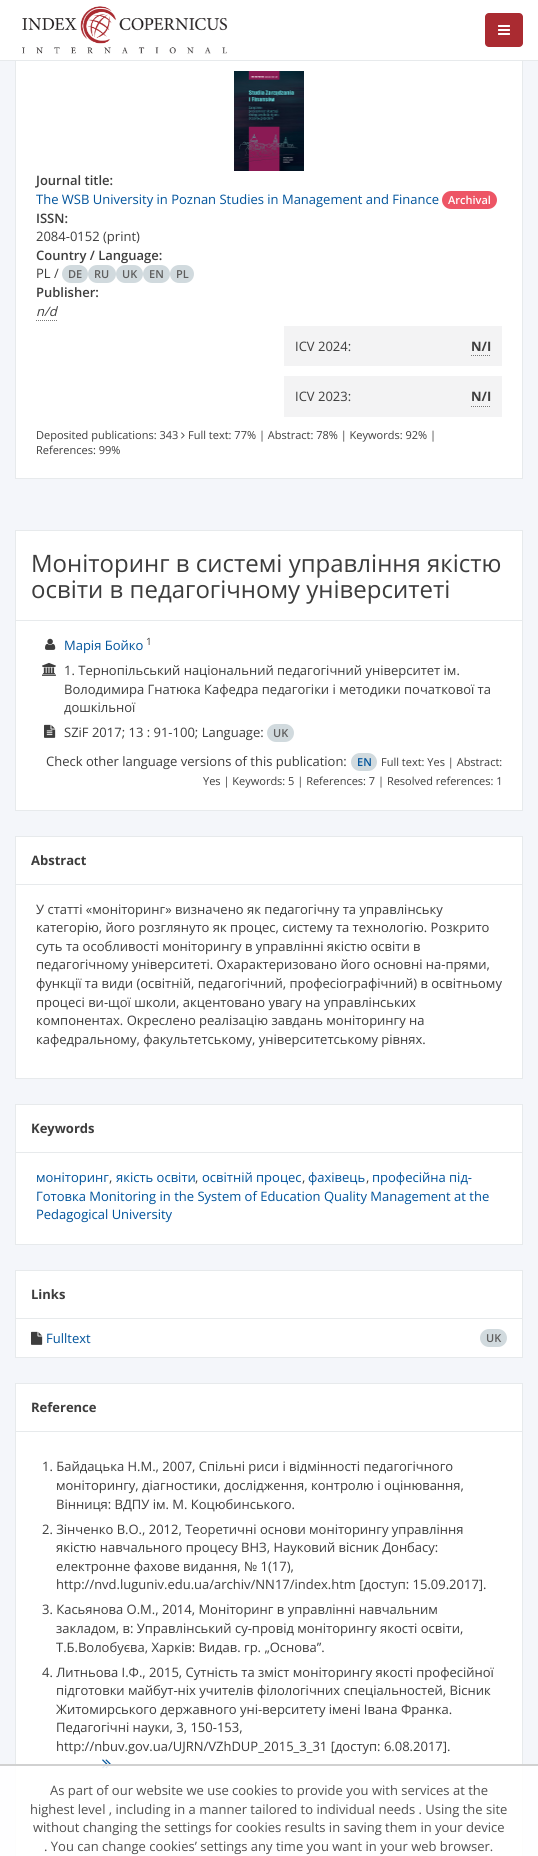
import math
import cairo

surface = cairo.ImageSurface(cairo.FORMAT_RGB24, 538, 1856)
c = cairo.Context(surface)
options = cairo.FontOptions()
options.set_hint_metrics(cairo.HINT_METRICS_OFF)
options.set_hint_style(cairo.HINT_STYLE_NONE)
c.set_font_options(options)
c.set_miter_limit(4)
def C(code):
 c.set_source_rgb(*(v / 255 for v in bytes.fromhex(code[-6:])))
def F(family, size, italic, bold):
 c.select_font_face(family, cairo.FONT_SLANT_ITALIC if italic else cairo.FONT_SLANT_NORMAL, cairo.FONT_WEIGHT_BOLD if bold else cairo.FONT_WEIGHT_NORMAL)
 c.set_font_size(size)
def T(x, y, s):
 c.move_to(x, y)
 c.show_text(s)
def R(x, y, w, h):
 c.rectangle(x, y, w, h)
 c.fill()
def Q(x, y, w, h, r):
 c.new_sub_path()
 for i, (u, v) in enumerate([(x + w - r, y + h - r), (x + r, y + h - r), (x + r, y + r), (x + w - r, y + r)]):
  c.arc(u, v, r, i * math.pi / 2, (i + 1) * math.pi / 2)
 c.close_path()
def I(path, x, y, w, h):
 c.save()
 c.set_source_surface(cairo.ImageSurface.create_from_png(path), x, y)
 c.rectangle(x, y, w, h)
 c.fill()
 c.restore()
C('f4f6fa')
c.paint()
C('ffffff')
R(16,61,506,417)
c.rectangle(15.5,55.5,507,423)
C('e7eaec')
c.set_line_width(1)
c.stroke()
C('ffffff')
R(0,0,538,60)
C('e7eaec')
R(0,60,538,1)
I('1.png',22,6,206,48)
C('aa2b31')
Q(485,13,38,34,4)
c.fill()
I('2.png',498,25,12,10)
I('3.png',234,71,70,100)
F('Open Sans SemiBold',13,0,0)
C('3d3d3d')
T(36,185,'Journal title:')
F('Open Sans',13,0,0)
C('00539b')
T(36,204,'The WSB University in Poznan Studies in Management and Finance')
C('ed5565')
Q(442,191,55,18,9)
c.fill()
F('Open Sans SemiBold',11,0,0)
C('ffffff')
T(448,204,'Archival')
F('Open Sans SemiBold',13,0,0)
C('3d3d3d')
T(36,223,'ISSN:')
F('Open Sans',13,0,0)
T(36,241,'2084-0152 (print)')
F('Open Sans SemiBold',13,0,0)
T(36,260,'Country / Language:')
F('Open Sans',13,0,0)
T(36,278,'PL /')
C('d1dade')
Q(62,265,26,18,9)
c.fill()
F('Open Sans SemiBold',11,0,0)
C('5e5e5e')
T(68,278,'DE')
C('d1dade')
Q(88,265,28,18,9)
c.fill()
C('5e5e5e')
T(94,278,'RU')
C('d1dade')
Q(116,265,27,18,9)
c.fill()
C('5e5e5e')
T(122,278,'UK')
C('d1dade')
Q(143,265,27,18,9)
c.fill()
C('5e5e5e')
T(149,278,'EN')
C('d1dade')
Q(170,265,24,18,9)
c.fill()
C('5e5e5e')
T(176,278,'PL')
F('Open Sans SemiBold',13,0,0)
C('3d3d3d')
T(36,297,'Publisher:')
F('Open Sans',13,1,0)
T(36,316,'n/d')
c.new_path()
c.move_to(36,320.5)
c.line_to(57,320.5)
C('777777')
c.set_dash([1,1])
c.stroke()
C('f3f3f4')
R(284,326,218,40)
F('Open Sans',13,0,0)
C('3d3d3d')
T(295,351,'ICV 2024:')
c.new_path()
c.move_to(471,355.5)
c.line_to(491,355.5)
C('777777')
c.stroke()
F('Open Sans',13,0,1)
C('3d3d3d')
T(471,351,'N/I')
C('f3f3f4')
R(284,376,218,41)
F('Open Sans',13,0,0)
C('3d3d3d')
T(295,401,'ICV 2023:')
c.new_path()
c.move_to(471,406.5)
c.line_to(491,406.5)
C('777777')
c.stroke()
F('Open Sans',13,0,1)
C('3d3d3d')
T(471,401,'N/I')
F('Open Sans',11,0,0)
T(36,439,'Deposited publications: 343')
I('4.png',181,432,4,7)
T(188,439,'Full text: 77% | Abstract: 78% | Keywords: 92% |')
T(36,454,'References: 99%')
C('ffffff')
R(16,531,506,89)
C('e7eaec')
R(15,530,508,1)
R(522,530,1,90)
R(15,530,1,90)
F('Open Sans',24,0,0)
C('3d3d3d')
T(31,572,'Моніторинг в системі управління якістю')
T(31,598,'освіти в педагогічному університеті')
C('ffffff')
c.rectangle(15.5,620.5,507,190)
c.fill_preserve()
C('e7eaec')
c.set_dash([])
c.stroke()
I('5.png',45,638,11,12)
F('Open Sans',13,0,0)
C('00539b')
T(64,650,'Марія Бойко')
F('Open Sans',10,0,0)
C('3d3d3d')
T(146,645,'1')
I('6.png',42,662,14,14)
F('Open Sans',13,0,0)
T(64,675,'1. Тернопільський національний педагогічний університет ім.')
T(64,694,'Володимира Гнатюка Кафедрa педагогіки і методики початкової та')
T(64,712,'дошкільної')
I('7.png',44,724,12,14)
T(64,737,'SZiF 2017; 13 : 91-100; Language:')
C('d1dade')
Q(267,724,27,18,9)
c.fill()
F('Open Sans SemiBold',11,0,0)
C('5e5e5e')
T(273,737,'UK')
F('Open Sans',13,0,0)
C('3d3d3d')
T(46,766,'Check other language versions of this publication:')
C('d1dade')
Q(351,753,26,18,9)
c.fill()
F('Open Sans SemiBold',11,0,0)
C('00539b')
T(357,766,'EN')
F('Open Sans',11,0,0)
C('3d3d3d')
T(381,766,'Full text: Yes | Abstract:')
T(203,785,'Yes | Keywords: 5 | References: 7 | Resolved references: 1')
C('ffffff')
R(16,837,506,47)
C('e7eaec')
R(15,836,508,1)
R(522,836,1,48)
R(15,836,1,48)
F('Open Sans',13,0,1)
C('3d3d3d')
T(31,865,'Abstract')
C('ffffff')
c.rectangle(15.5,884.5,507,194)
c.fill_preserve()
C('e7eaec')
c.stroke()
F('Open Sans',13,0,0)
C('3d3d3d')
T(36,914,'У статті «моніторинг» визначено як педагогічну та управлінську')
T(36,932,'категорію, його розглянуто як процес, систему та технологію. Розкрито')
T(36,951,'суть та особливості моніторингу в управлінні якістю освіти в')
T(36,969,'педагогічному університеті. Охарактеризовано його основні на-прями,')
T(36,988,'функції та види (освітній, педагогічний, професіографічний) в освітньому')
T(36,1007,'процесі ви-щої школи, акцентовано увагу на управлінських')
T(36,1025,'компонентах. Окреслено реалізацію завдань моніторингу на')
T(36,1044,'кафедральному, факультетському, університетському рівнях.')
C('ffffff')
R(16,1105,506,47)
C('e7eaec')
R(15,1104,508,1)
R(522,1104,1,48)
R(15,1104,1,48)
F('Open Sans',13,0,1)
C('3d3d3d')
T(31,1133,'Keywords')
C('ffffff')
c.rectangle(15.5,1152.5,507,92)
c.fill_preserve()
C('e7eaec')
c.stroke()
F('Open Sans',13,0,0)
C('00539b')
T(36,1182,'моніторинг')
C('3d3d3d')
T(109,1182,',')
C('00539b')
T(116,1182,'якість освіти')
C('3d3d3d')
T(195,1182,',')
C('00539b')
T(202,1182,'освітній процес')
C('3d3d3d')
T(302,1182,',')
C('00539b')
T(308,1182,'фахівець')
C('3d3d3d')
T(366,1182,',')
C('00539b')
T(372,1182,'професійна під-')
T(36,1201,'Готовка Monitoring in the System of Education Quality Management at the')
T(36,1219,'Pedagogical University')
C('ffffff')
R(16,1271,506,47)
C('e7eaec')
R(15,1270,508,1)
R(522,1270,1,48)
R(15,1270,1,48)
F('Open Sans',13,0,1)
C('3d3d3d')
T(31,1299,'Links')
C('ffffff')
c.rectangle(15.5,1318.5,507,39)
c.fill_preserve()
C('e7eaec')
c.stroke()
I('8.png',31,1331,12,14)
F('Open Sans',13,0,0)
C('00539b')
T(46,1343,'Fulltext')
C('d1dade')
Q(480,1329,27,18,9)
c.fill()
F('Open Sans SemiBold',11,0,0)
C('5e5e5e')
T(486,1342,'UK')
C('ffffff')
R(16,1384,506,47)
C('e7eaec')
R(15,1383,508,1)
R(522,1383,1,48)
R(15,1383,1,48)
F('Open Sans',13,0,1)
C('3d3d3d')
T(31,1412,'Reference')
C('ffffff')
c.rectangle(15.5,1431.5,507,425)
c.fill_preserve()
C('e7eaec')
c.stroke()
F('Open Sans',13,0,0)
C('3d3d3d')
T(42,1471,'1. Байдацька Н.М., 2007, Спільні риси і відмінності педагогічного')
T(56,1490,'моніторингу, діагностики, дослідження, контролю і оцінювання,')
T(56,1509,'Вінниця: ВДПУ ім. М. Коцюбинського.')
T(42,1534,'2. Зінченко В.О., 2012, Теоретичні основи моніторингу управління')
T(56,1552,'якістю навчального процесу ВНЗ, Науковий вісник Донбасу:')
T(56,1571,'електронне фахове видання, № 1(17),')
T(56,1589,'http://nvd.luguniv.edu.ua/archiv/NN17/index.htm [доступ: 15.09.2017].')
T(42,1614,'3. Касьянова О.М., 2014, Моніторинг в управлінні навчальним')
T(56,1633,'закладом, в: Управлінський су-провід моніторингу якості освіти,')
T(56,1652,'Т.Б.Волобуєва, Харків: Видав. гр. „Основа”.')
T(42,1677,'4. Литньова І.Ф., 2015, Cутність та зміст моніторингу якості професійної')
T(56,1695,'підготовки майбут-ніх учителів філологічних спеціальностей, Вісник')
T(56,1714,'Житомирського державного уні-верситету імені Івана Франка.')
T(56,1732,'Педагогічні науки, 3, 150-153,')
T(56,1751,'http://nbuv.gov.ua/UJRN/VZhDUP_2015_3_31 [доступ: 6.08.2017].')
I('9.png',102,1759,9,10)
c.set_source_rgba(1,1,1,0.9)
R(0,1764,538,92)
c.set_source_rgba(0.8,0.8,0.8,0.9)
R(0,1764,538,2)
C('505050')
T(50,1795,'As part of our website we use cookies to provide you with services at the')
T(30,1814,'highest level , including in a manner tailored to individual needs . Using the site')
T(33,1832,'without changing the settings for cookies results in saving them in your device')
T(44,1851,'. You can change cookies’ settings any time you want in your web browser.')
surface.write_to_png('o.png')
